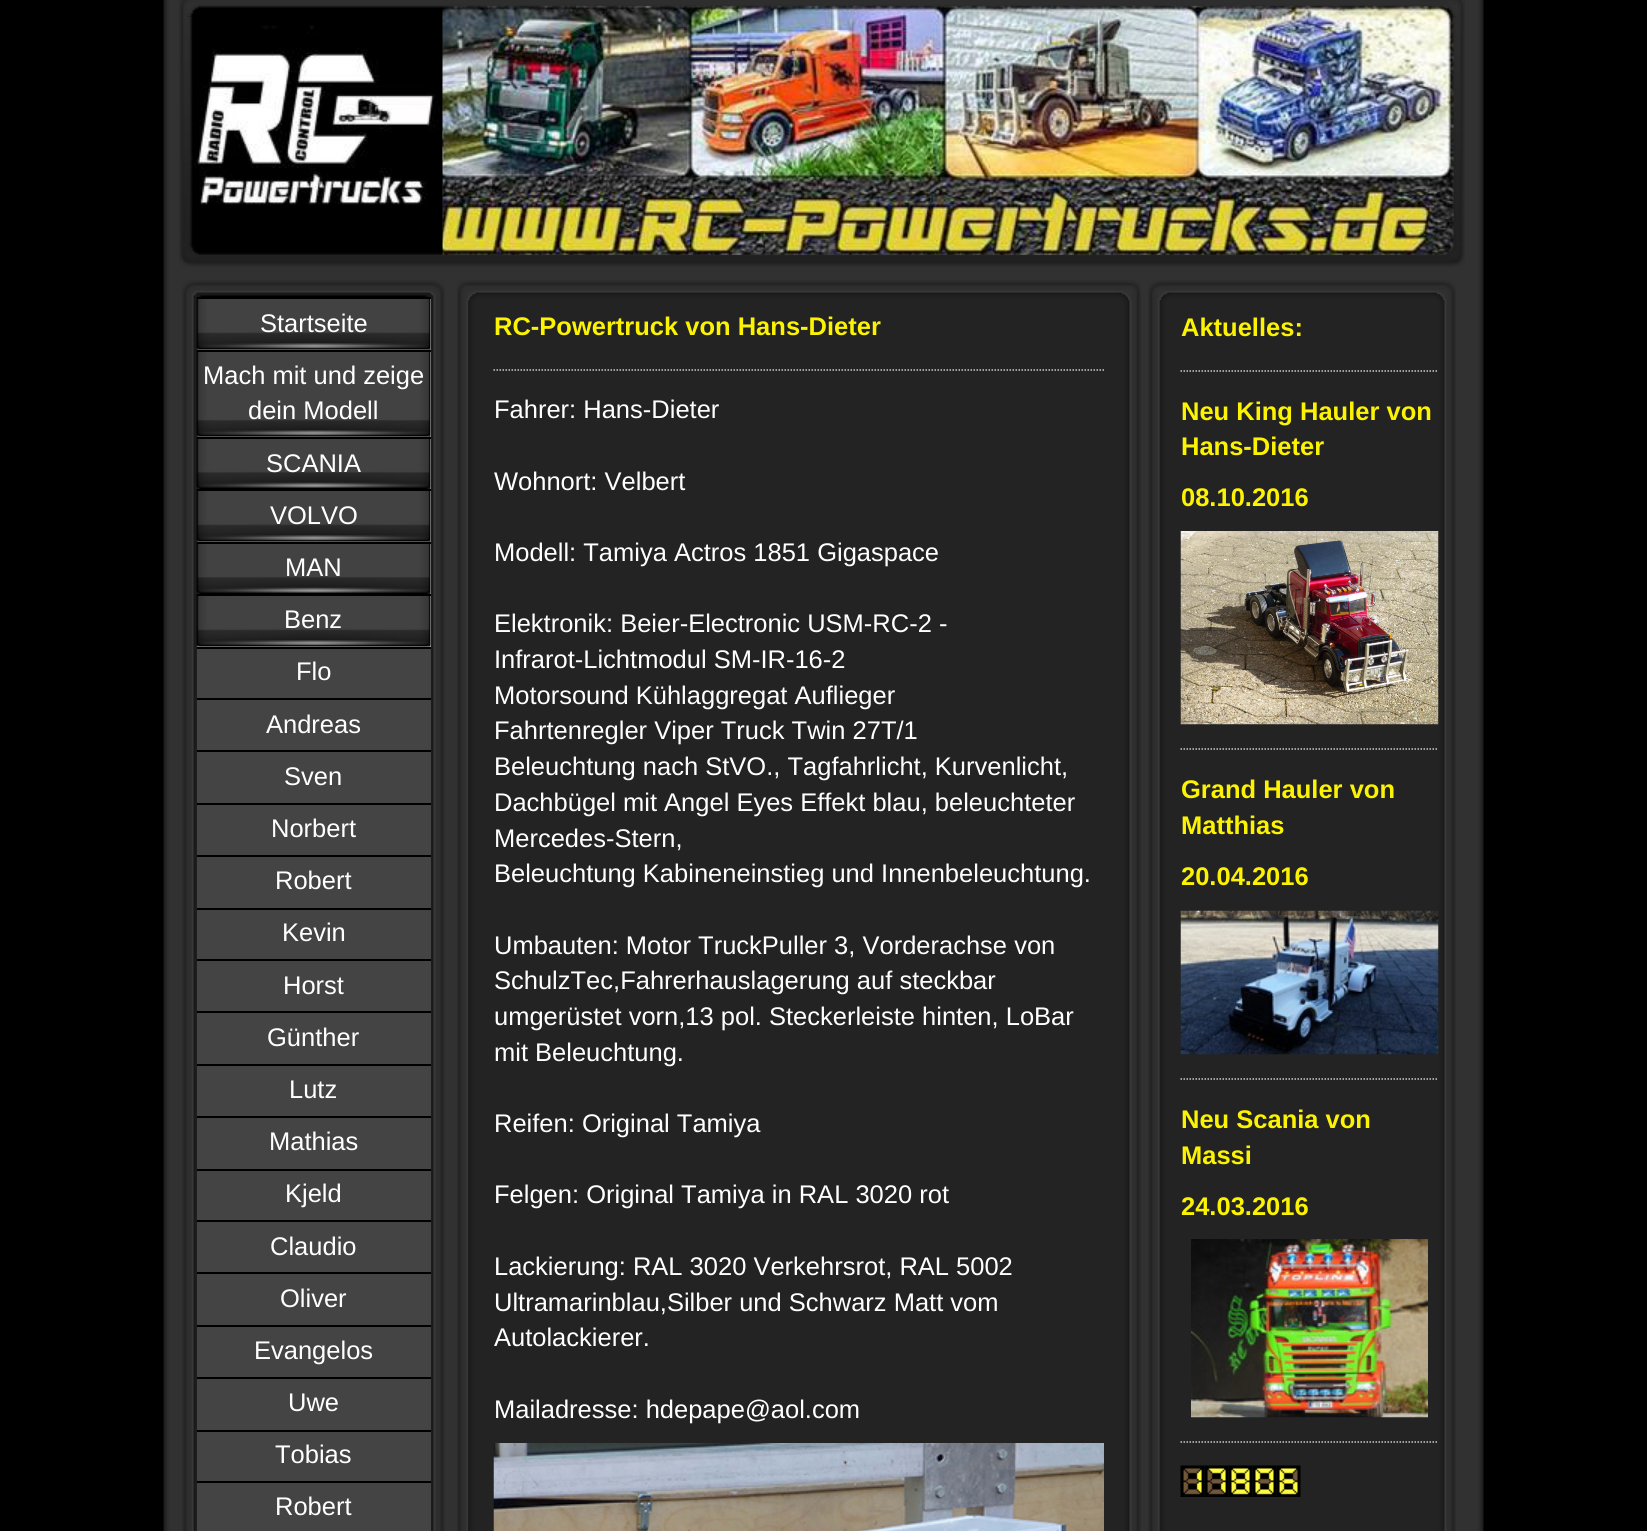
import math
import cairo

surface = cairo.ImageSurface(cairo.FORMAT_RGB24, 1647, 1531)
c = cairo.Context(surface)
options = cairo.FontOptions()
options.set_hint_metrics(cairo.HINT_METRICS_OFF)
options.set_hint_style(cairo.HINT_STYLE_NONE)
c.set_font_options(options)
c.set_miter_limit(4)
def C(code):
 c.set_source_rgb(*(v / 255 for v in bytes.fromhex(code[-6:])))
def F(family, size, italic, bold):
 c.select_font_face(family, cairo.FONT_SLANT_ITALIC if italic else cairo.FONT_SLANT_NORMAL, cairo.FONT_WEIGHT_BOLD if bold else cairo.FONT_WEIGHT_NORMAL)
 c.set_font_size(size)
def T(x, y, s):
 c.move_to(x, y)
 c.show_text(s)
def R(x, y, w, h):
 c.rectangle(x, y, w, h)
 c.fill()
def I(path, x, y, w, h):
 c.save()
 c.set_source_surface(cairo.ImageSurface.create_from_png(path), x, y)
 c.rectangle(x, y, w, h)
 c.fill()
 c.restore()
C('000000')
c.paint()
I('1.png',163,0,1321,1531)
I('6.png',187,16,1270,229)
I('4.png',187,5,1270,250)
I('5.png',187,5,256,250)
I('3.png',179,16,14,229)
I('8.png',179,244,1286,23)
I('7.png',1448,16,17,229)
I('2.png',179,0,1286,17)
I('9.png',182,297,263,1234)
I('10.png',182,279,263,18)
C('cccccc')
R(197,299,234,51)
I('11.png',196,297,235,53)
C('000000')
R(197,297,234,2)
F('Liberation Sans',25.5,0,0)
C('ffffff')
T(260,332,'Startseite')
C('cccccc')
R(197,352,234,85)
I('12.png',196,349,235,88)
C('000000')
R(197,350,234,2)
C('ffffff')
T(203,384,'Mach mit und zeige')
T(248,419,'dein Modell')
C('cccccc')
R(430,439,1,50)
I('13.png',196,436,235,53)
C('000000')
R(197,437,234,2)
C('ffffff')
T(266,472,'SCANIA')
C('cccccc')
R(197,491,234,51)
I('11.png',196,489,235,53)
C('000000')
R(197,489,234,2)
C('ffffff')
T(270,524,'VOLVO')
C('cccccc')
R(430,544,1,50)
I('13.png',196,541,235,53)
C('000000')
R(197,542,234,2)
C('ffffff')
T(285,576,'MAN')
C('cccccc')
R(197,596,234,51)
I('11.png',196,594,235,53)
C('000000')
R(197,594,234,2)
C('ffffff')
T(284,628,'Benz')
C('444444')
R(197,649,234,49)
C('000000')
R(197,647,234,2)
C('ffffff')
T(296,680,'Flo')
C('444444')
R(197,700,234,50)
C('000000')
R(197,698,234,2)
C('ffffff')
T(266,733,'Andreas')
C('444444')
R(197,752,234,51)
C('000000')
R(197,750,234,2)
C('ffffff')
T(284,785,'Sven')
C('444444')
R(197,805,234,50)
C('000000')
R(197,803,234,2)
C('ffffff')
T(271,837,'Norbert')
C('444444')
R(197,857,234,51)
C('000000')
R(197,855,234,2)
C('ffffff')
T(275,889,'Robert')
C('444444')
R(197,910,234,49)
C('000000')
R(197,908,234,2)
C('ffffff')
T(282,941,'Kevin')
C('444444')
R(197,961,234,50)
C('000000')
R(197,959,234,2)
C('ffffff')
T(283,994,'Horst')
C('444444')
R(197,1013,234,51)
C('000000')
R(197,1011,234,2)
C('ffffff')
T(267,1046,'Günther')
C('444444')
R(197,1066,234,50)
C('000000')
R(197,1064,234,2)
C('ffffff')
T(289,1098,'Lutz')
C('444444')
R(197,1118,234,51)
C('000000')
R(197,1116,234,2)
C('ffffff')
T(269,1150,'Mathias')
C('444444')
R(197,1171,234,49)
C('000000')
R(197,1169,234,2)
C('ffffff')
T(285,1202,'Kjeld')
C('444444')
R(197,1222,234,50)
C('000000')
R(197,1220,234,2)
C('ffffff')
T(270,1255,'Claudio')
C('444444')
R(197,1274,234,51)
C('000000')
R(197,1272,234,2)
C('ffffff')
T(280,1307,'Oliver')
C('444444')
R(197,1327,234,50)
C('000000')
R(197,1325,234,2)
C('ffffff')
T(254,1359,'Evangelos')
C('444444')
R(197,1379,234,51)
C('000000')
R(197,1377,234,2)
C('ffffff')
T(288,1411,'Uwe')
C('444444')
R(197,1432,234,49)
C('000000')
R(197,1430,234,2)
C('ffffff')
T(275,1463,'Tobias')
C('444444')
R(197,1483,234,48)
C('000000')
R(197,1481,234,2)
C('ffffff')
T(275,1515,'Robert')
I('14.png',457,301,684,1230)
I('15.png',457,279,684,22)
F('Liberation Sans',25.5,0,1)
C('fcf302')
T(494,335,'RC-Powertruck von Hans-Dieter')
c.new_path()
c.move_to(493.5,370)
c.line_to(1104,370)
C('cccccc')
c.set_line_width(1.5)
c.set_dash([1.5,1.5])
c.stroke()
F('Liberation Sans',25.5,0,0)
C('ffffff')
T(494,418,'Fahrer: Hans-Dieter')
T(494,490,'Wohnort: Velbert')
T(494,561,'Modell: Tamiya Actros 1851 Gigaspace')
T(494,632,'Elektronik: Beier-Electronic USM-RC-2 -')
T(494,668,'Infrarot-Lichtmodul SM-IR-16-2')
T(494,704,'Motorsound Kühlaggregat Auflieger')
T(494,739,'Fahrtenregler Viper Truck Twin 27T/1')
T(494,775,'Beleuchtung nach StVO., Tagfahrlicht, Kurvenlicht,')
T(494,811,'Dachbügel mit Angel Eyes Effekt blau, beleuchteter')
T(494,847,'Mercedes-Stern,')
T(494,882,'Beleuchtung Kabineneinstieg und Innenbeleuchtung.')
T(494,954,'Umbauten: Motor TruckPuller 3, Vorderachse von')
T(494,989,'SchulzTec,Fahrerhauslagerung auf steckbar')
T(494,1025,'umgerüstet vorn,13 pol. Steckerleiste hinten, LoBar')
T(494,1061,'mit Beleuchtung.')
T(494,1132,'Reifen: Original Tamiya')
T(494,1203,'Felgen: Original Tamiya in RAL 3020 rot')
T(494,1275,'Lackierung: RAL 3020 Verkehrsrot, RAL 5002')
T(494,1311,'Ultramarinblau,Silber und Schwarz Matt vom')
T(494,1346,'Autolackierer.')
T(494,1418,'Mailadresse: hdepape@aol.com')
I('16.png',493,1443,611,88)
I('17.png',1148,300,308,1231)
I('18.png',1148,279,308,21)
F('Liberation Sans',25.5,0,1)
C('fcf302')
T(1181,336,'Aktuelles:')
c.new_path()
c.move_to(1180.5,371)
c.line_to(1438.5,371)
C('cccccc')
c.stroke()
C('fcf302')
T(1181,420,'Neu King Hauler von')
T(1181,455,'Hans-Dieter')
T(1181,506,'08.10.2016')
I('19.png',1180,531,259,194)
c.new_path()
c.move_to(1180.5,749)
c.line_to(1438.5,749)
C('cccccc')
c.stroke()
C('fcf302')
T(1181,798,'Grand Hauler von')
T(1181,834,'Matthias')
T(1181,885,'20.04.2016')
I('20.png',1180,910,259,145)
c.new_path()
c.move_to(1180.5,1079)
c.line_to(1438.5,1079)
C('cccccc')
c.stroke()
C('fcf302')
T(1181,1128,'Neu Scania von')
T(1181,1164,'Massi')
T(1181,1215,'24.03.2016')
I('21.png',1191,1239,237,179)
c.new_path()
c.move_to(1180.5,1442)
c.line_to(1438.5,1442)
C('cccccc')
c.stroke()
I('22.png',1180,1465,25,32)
I('23.png',1204,1465,25,32)
I('24.png',1228,1465,25,32)
I('25.png',1252,1465,25,32)
I('26.png',1276,1465,25,32)
surface.write_to_png('o.png')
